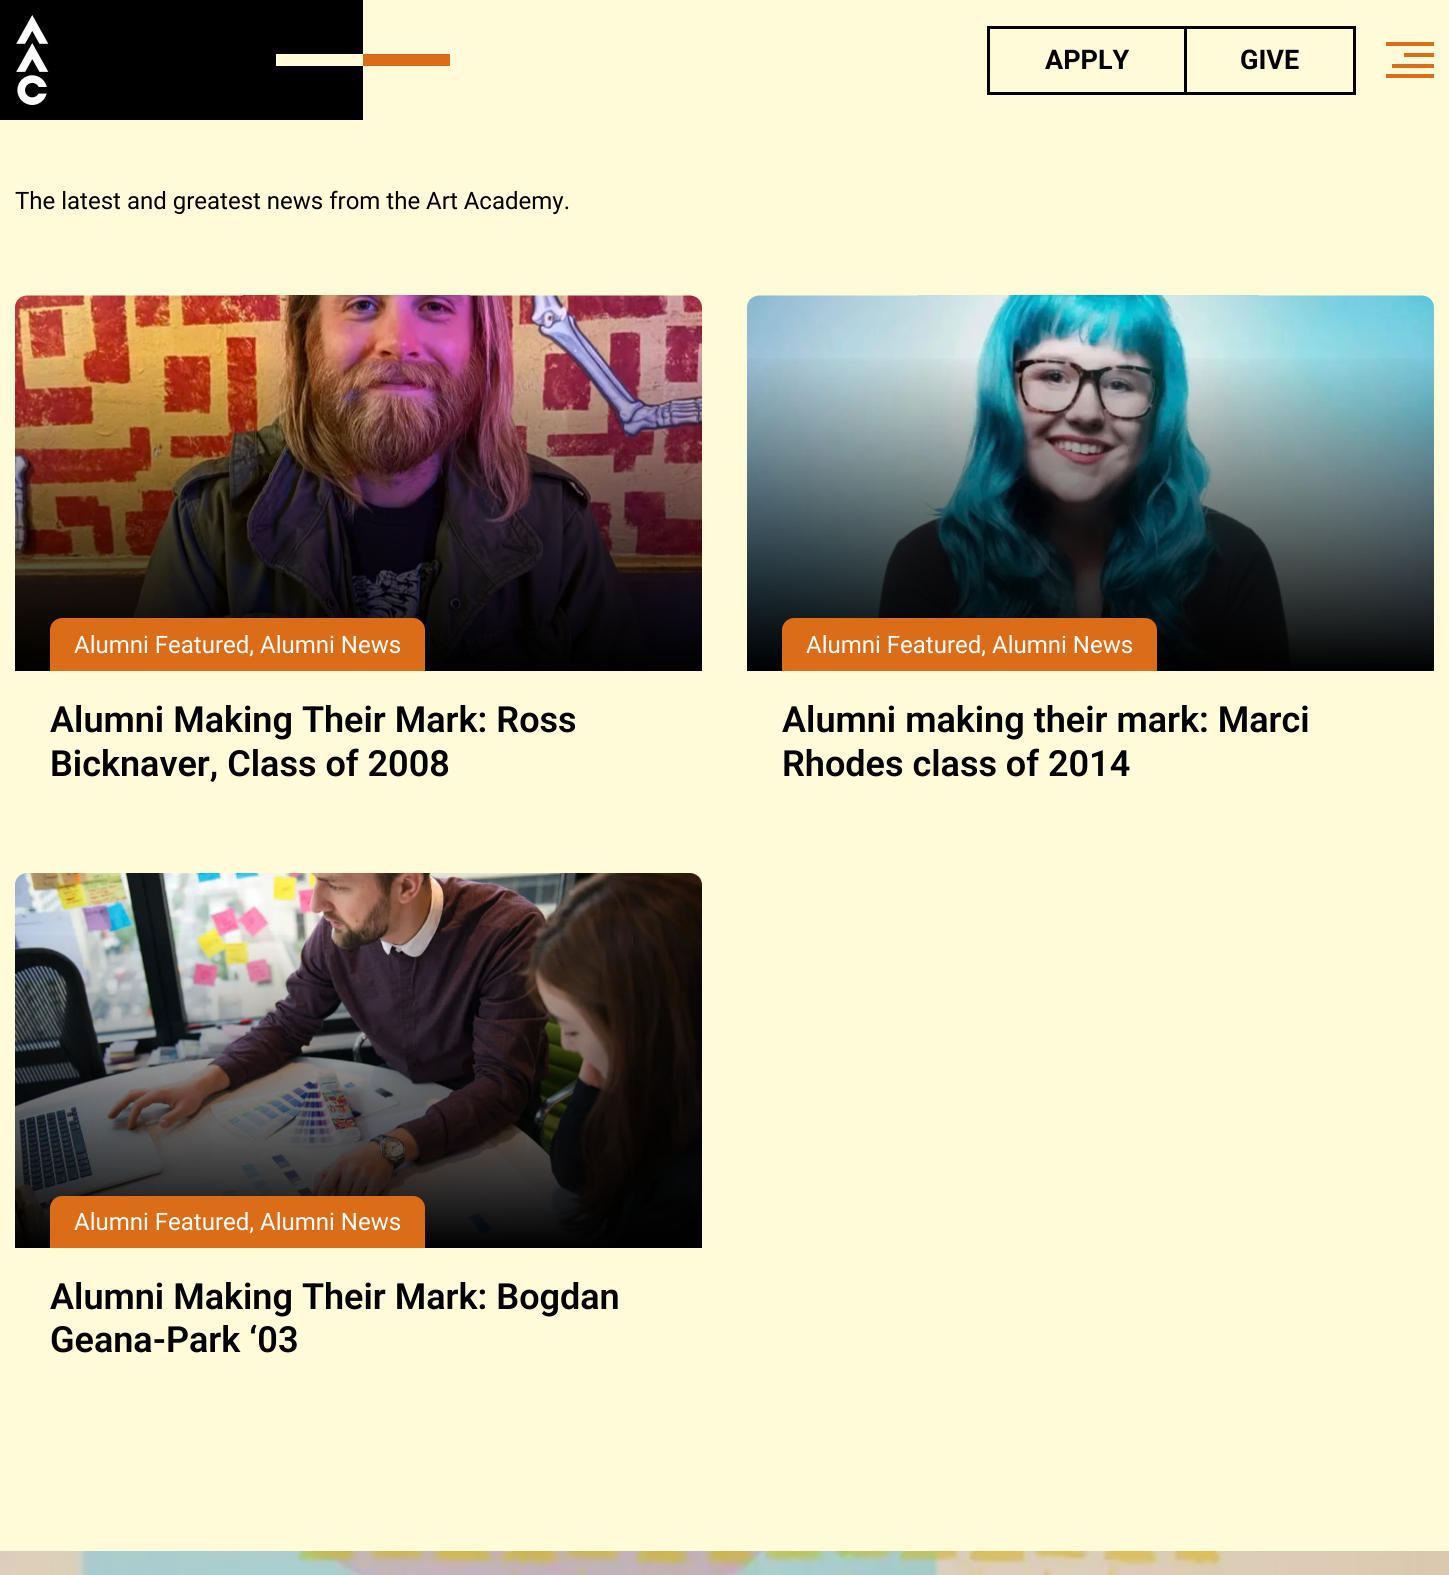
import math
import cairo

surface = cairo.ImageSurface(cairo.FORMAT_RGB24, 1449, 1575)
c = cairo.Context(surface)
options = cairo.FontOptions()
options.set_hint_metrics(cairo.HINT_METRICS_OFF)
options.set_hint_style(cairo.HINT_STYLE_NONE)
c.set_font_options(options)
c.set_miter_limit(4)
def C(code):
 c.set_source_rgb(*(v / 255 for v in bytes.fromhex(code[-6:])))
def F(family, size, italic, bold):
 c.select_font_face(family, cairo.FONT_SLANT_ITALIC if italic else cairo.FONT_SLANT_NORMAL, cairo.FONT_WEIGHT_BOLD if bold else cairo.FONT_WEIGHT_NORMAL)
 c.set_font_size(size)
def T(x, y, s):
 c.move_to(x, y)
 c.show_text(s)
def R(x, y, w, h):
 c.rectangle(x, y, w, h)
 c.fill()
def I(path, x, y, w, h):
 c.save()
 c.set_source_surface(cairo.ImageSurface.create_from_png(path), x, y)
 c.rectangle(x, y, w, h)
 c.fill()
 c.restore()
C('fffbd9')
c.paint()
C('000000')
R(0,0,363,120)
C('fffbd9')
R(276,54,87,12)
C('dc6d18')
R(363,54,87,12)
I('1.png',16,15,33,90)
c.rectangle(988.5,27.5,197,66)
C('000000')
c.set_line_width(3)
c.stroke()
F('Roboto',27,0,1)
T(1045,69,'APPLY')
c.rectangle(1185.5,27.5,169,66)
c.stroke()
T(1240,69,'GIVE')
C('dc6d18')
R(1386,42,48,4)
R(1404,53,30,4)
R(1392,64,42,4)
R(1386,74,48,4)
F('Roboto',24,0,0)
C('000000')
T(15,209,'The latest and greatest news from the Art Academy.')
I('2.png',15,295,687,375)
gradient = cairo.LinearGradient(358,295,359,671)
gradient.add_color_stop_rgba(.15,0,0,0,0)
gradient.add_color_stop_rgba(1,0,0,0,1)
c.set_source(gradient)
R(15,357,687,314)
C('dc6d18')
c.new_path()
c.move_to(62,618)
c.line_to(413,618)
c.curve_to(419.5,618,425,623.5,425,630)
c.line_to(425,671)
c.line_to(50,671)
c.line_to(50,630)
c.curve_to(50,623.5,55.5,618,62,618)
c.close_path()
c.fill()
C('ffffff')
T(74,653,'Alumni Featured, Alumni News')
F('Roboto SemiBold',36,0,0)
C('000000')
T(50,732,'Alumni Making Their Mark: Ross')
T(50,776,'Bicknaver, Class of 2008')
I('3.png',747,295,687,374)
gradient = cairo.LinearGradient(1091,295,1091,671)
gradient.add_color_stop_rgba(.15,0,0,0,0)
gradient.add_color_stop_rgba(1,0,0,0,1)
c.set_source(gradient)
R(747,358,687,313)
C('dc6d18')
c.new_path()
c.move_to(794,618)
c.line_to(1145,618)
c.curve_to(1151.5,618,1157,623.5,1157,630)
c.line_to(1157,671)
c.line_to(782,671)
c.line_to(782,630)
c.curve_to(782,623.5,787.5,618,794,618)
c.close_path()
c.fill()
F('Roboto',24,0,0)
C('ffffff')
T(806,653,'Alumni Featured, Alumni News')
F('Roboto SemiBold',36,0,0)
C('000000')
T(782,732,'Alumni making their mark: Marci')
T(782,776,'Rhodes class of 2014')
I('4.png',15,873,687,374)
gradient = cairo.LinearGradient(358,873,359,1248)
gradient.add_color_stop_rgba(.15,0,0,0,0)
gradient.add_color_stop_rgba(1,0,0,0,1)
c.set_source(gradient)
R(15,935,687,313)
C('dc6d18')
c.new_path()
c.move_to(62,1196)
c.line_to(413,1196)
c.curve_to(419.5,1196,425,1201.5,425,1208)
c.line_to(425,1248)
c.line_to(50,1248)
c.line_to(50,1208)
c.curve_to(50,1201.5,55.5,1196,62,1196)
c.close_path()
c.fill()
F('Roboto',24,0,0)
C('ffffff')
T(74,1230,'Alumni Featured, Alumni News')
F('Roboto SemiBold',36,0,0)
C('000000')
T(50,1309,'Alumni Making Their Mark: Bogdan')
T(50,1352,'Geana-Park ‘03')
I('5.png',0,1551,1449,24)
surface.write_to_png('o.png')
